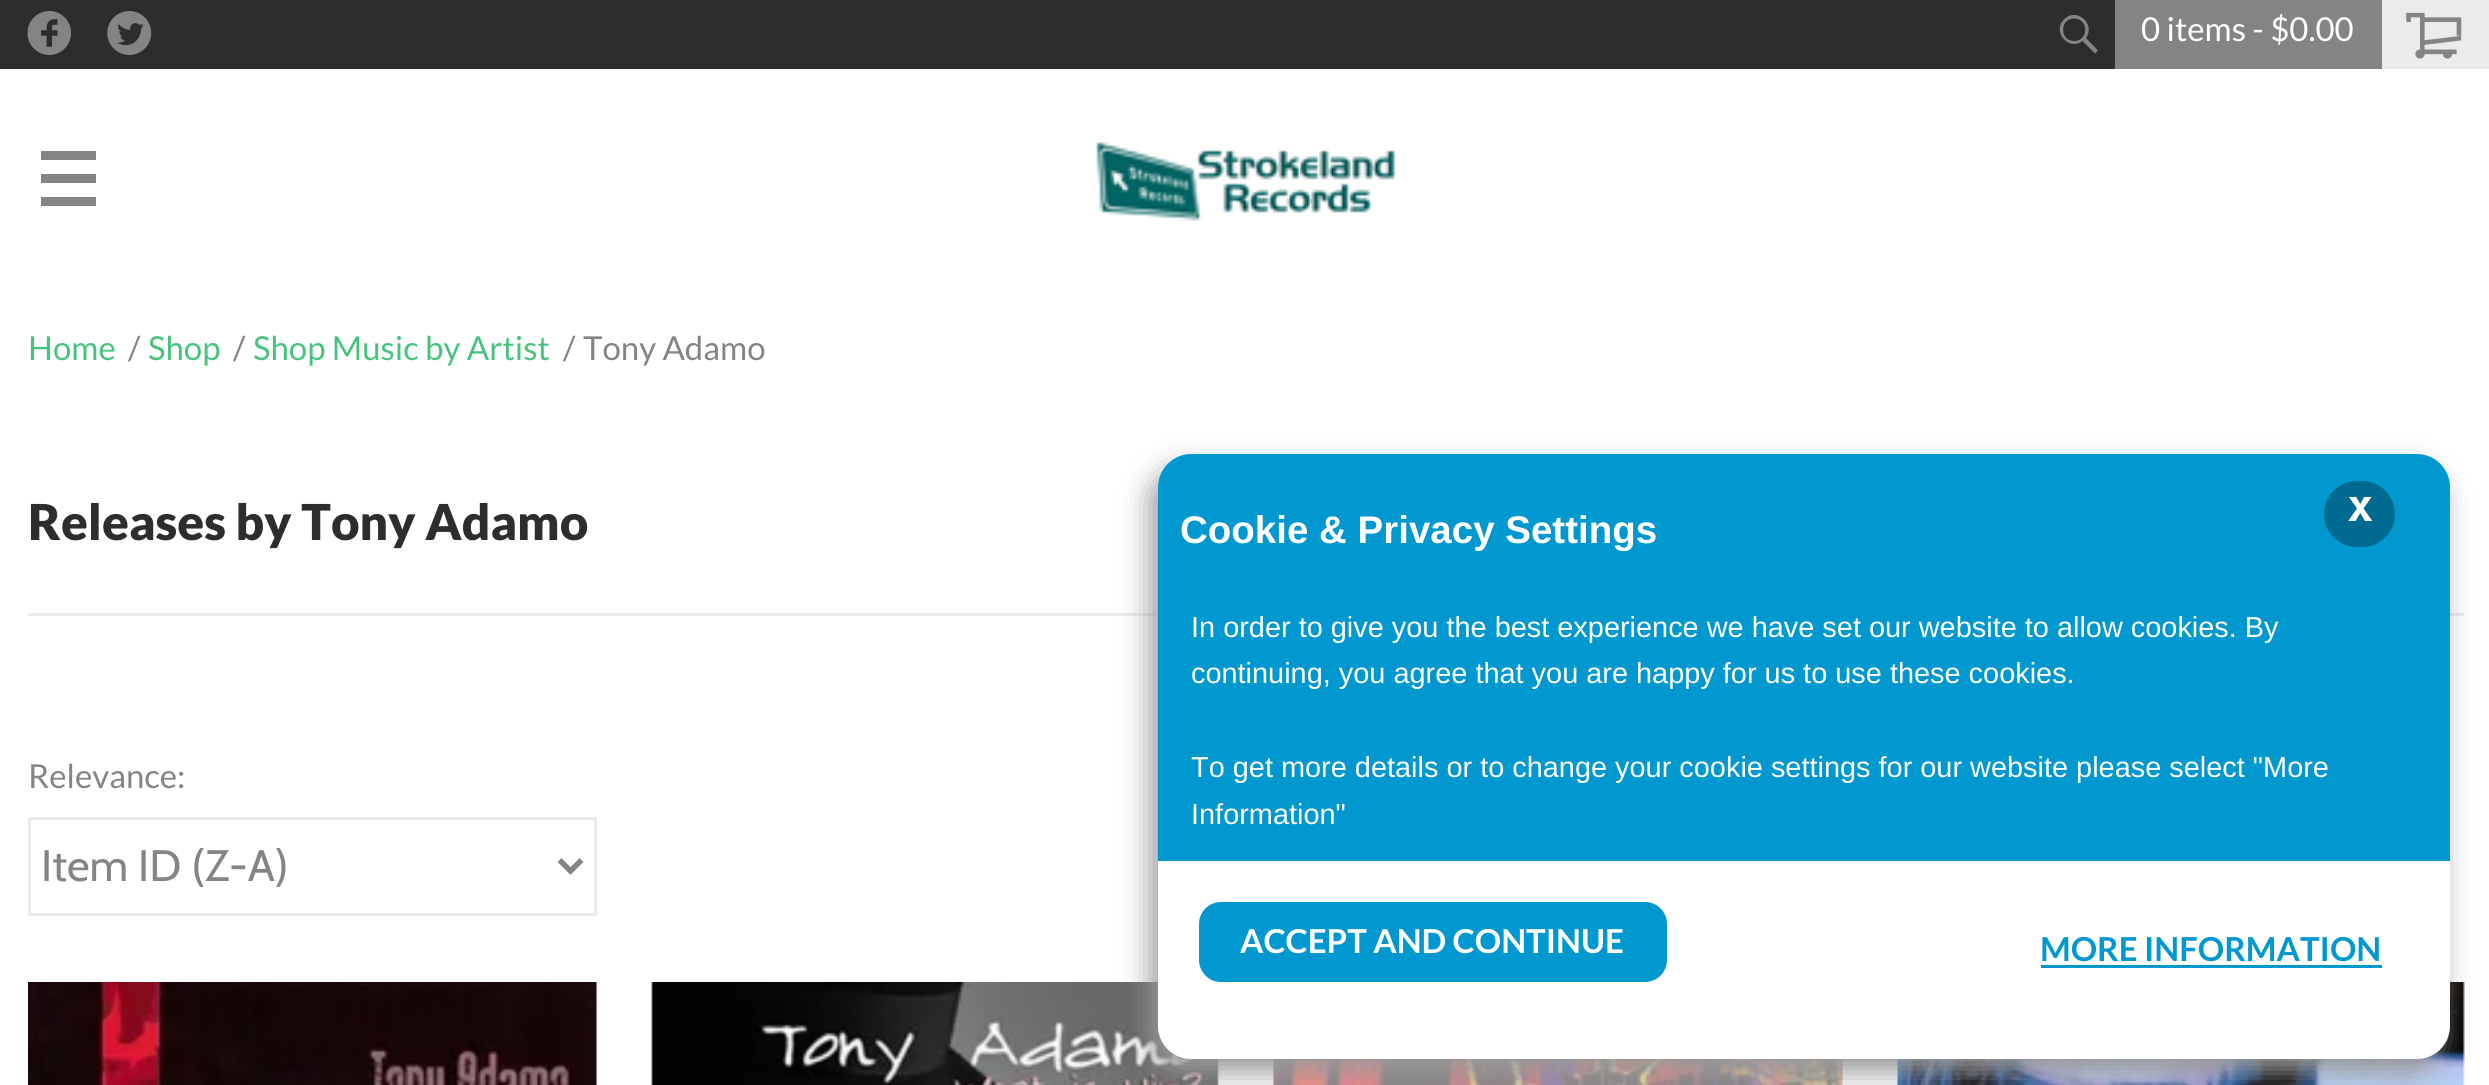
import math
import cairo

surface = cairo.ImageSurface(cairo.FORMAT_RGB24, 2489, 1085)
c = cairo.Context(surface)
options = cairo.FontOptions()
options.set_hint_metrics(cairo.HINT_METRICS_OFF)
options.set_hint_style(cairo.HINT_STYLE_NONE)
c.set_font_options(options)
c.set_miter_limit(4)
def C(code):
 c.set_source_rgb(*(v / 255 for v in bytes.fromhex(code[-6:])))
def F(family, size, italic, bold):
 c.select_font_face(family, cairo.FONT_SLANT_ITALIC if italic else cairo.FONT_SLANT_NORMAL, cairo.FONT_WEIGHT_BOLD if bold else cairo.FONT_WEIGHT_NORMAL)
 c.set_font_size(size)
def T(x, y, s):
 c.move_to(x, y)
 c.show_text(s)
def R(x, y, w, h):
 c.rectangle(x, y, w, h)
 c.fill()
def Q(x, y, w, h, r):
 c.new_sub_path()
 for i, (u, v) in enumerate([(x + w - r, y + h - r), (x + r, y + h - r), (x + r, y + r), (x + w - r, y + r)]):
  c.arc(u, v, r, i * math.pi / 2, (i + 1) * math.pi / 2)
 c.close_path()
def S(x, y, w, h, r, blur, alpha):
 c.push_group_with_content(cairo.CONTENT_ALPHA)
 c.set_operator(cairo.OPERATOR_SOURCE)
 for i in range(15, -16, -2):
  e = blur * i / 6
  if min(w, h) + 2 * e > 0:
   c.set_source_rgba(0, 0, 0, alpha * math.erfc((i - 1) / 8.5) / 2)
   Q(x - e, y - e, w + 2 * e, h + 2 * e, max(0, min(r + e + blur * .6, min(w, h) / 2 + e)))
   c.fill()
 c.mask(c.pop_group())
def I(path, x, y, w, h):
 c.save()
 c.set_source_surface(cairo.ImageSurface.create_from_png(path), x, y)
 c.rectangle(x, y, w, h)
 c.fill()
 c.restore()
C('ffffff')
c.paint()
C('2d2d2d')
R(0,0,2115,69)
I('1.png',27,11,44,44)
I('2.png',107,11,45,44)
C('848484')
c.new_path()
c.move_to(2098,50.5)
c.line_to(2086,38)
c.curve_to(2096,24,2076.5,6.5,2064,19.5)
c.curve_to(2051.5,32,2069,51.5,2082.5,41)
c.line_to(2095,53.5)
c.close_path()
c.move_to(2074,18.5)
c.curve_to(2089,18.5,2089,41,2074,41)
c.curve_to(2059.5,41,2059.5,18.5,2074,18.5)
c.close_path()
c.fill()
R(2115,0,267,69)
F('Lato',33,0,0)
C('ffffff')
T(2141,41,'0 items - $0.00')
C('ebebeb')
R(2382,0,107,69)
I('3.png',2406,12,56,47)
C('848484')
c.new_path()
c.move_to(41,206)
c.line_to(96,206)
c.line_to(96,197)
c.line_to(41,197)
c.close_path()
c.move_to(41,174)
c.line_to(41,183)
c.line_to(96,183)
c.line_to(96,174)
c.close_path()
c.move_to(41,151)
c.line_to(41,160)
c.line_to(96,160)
c.line_to(96,151)
c.close_path()
c.fill()
I('4.png',1096,142,300,79)
C('48c37e')
T(28,360,'Home')
C('848484')
T(128,360,'/')
C('48c37e')
T(148,360,'Shop')
C('848484')
T(233,360,'/')
C('48c37e')
T(253,360,'Shop Music by Artist')
C('848484')
T(563,360,'/')
T(583,360,'Tony Adamo')
C('ebebeb')
R(28,613,2436,3)
F('Lato Black',49.5,0,0)
C('2d2d2d')
T(28,540,'Releases by Tony Adamo')
F('Lato',33,0,0)
C('848484')
T(28,788,'Relevance:')
c.rectangle(29.5,818.5,566,96)
C('ebebeb')
c.set_line_width(3)
c.stroke()
c.new_path()
c.move_to(559.5,860)
c.line_to(570.5,871)
c.line_to(581.5,860)
C('848484')
c.set_line_width(5.5)
c.stroke()
F('Cabin',44,0,0)
T(41,881,'Item ID (Z-A)')
I('5.png',28,982,570,103)
I('6.png',651,982,568,103)
I('7.png',1272,1059,571,26)
I('8.png',1897,982,568,103)
C('999999')
S(1150,468,1292,605,33,14,1)
C('ffffff')
Q(1158,454,1292,605,33)
c.fill()
C('0098cf')
c.new_path()
c.move_to(1191,454)
c.line_to(2417,454)
c.curve_to(2435,454,2450,469,2450,487)
c.line_to(2450,861)
c.line_to(1158,861)
c.line_to(1158,487)
c.curve_to(1158,469,1173,454,1191,454)
c.close_path()
c.fill()
C('006a91')
Q(2324,481,71,66,33)
c.fill()
F('DejaVu Sans Mono',44,0,1)
C('ffffff')
T(2347,521,'x')
F('Liberation Sans',38.5,0,1)
T(1180,543,'Cookie & Privacy Settings')
F('Liberation Sans',28.9,0,0)
T(1191,637,'In order to give you the best experience we have set our website to allow cookies. By')
T(1191,683,'continuing, you agree that you are happy for us to use these cookies.')
T(1191,777,'To get more details or to change your cookie settings for our website please select "More')
T(1191,824,'Information"')
C('0098cf')
Q(1199,902,468,80,22)
c.fill()
F('Lato',33,0,1)
C('ffffff')
T(1240,953,'ACCEPT AND CONTINUE')
C('0098cf')
T(2040,961,'MORE INFORMATION')
R(2041,965,341,3)
surface.write_to_png('o.png')
